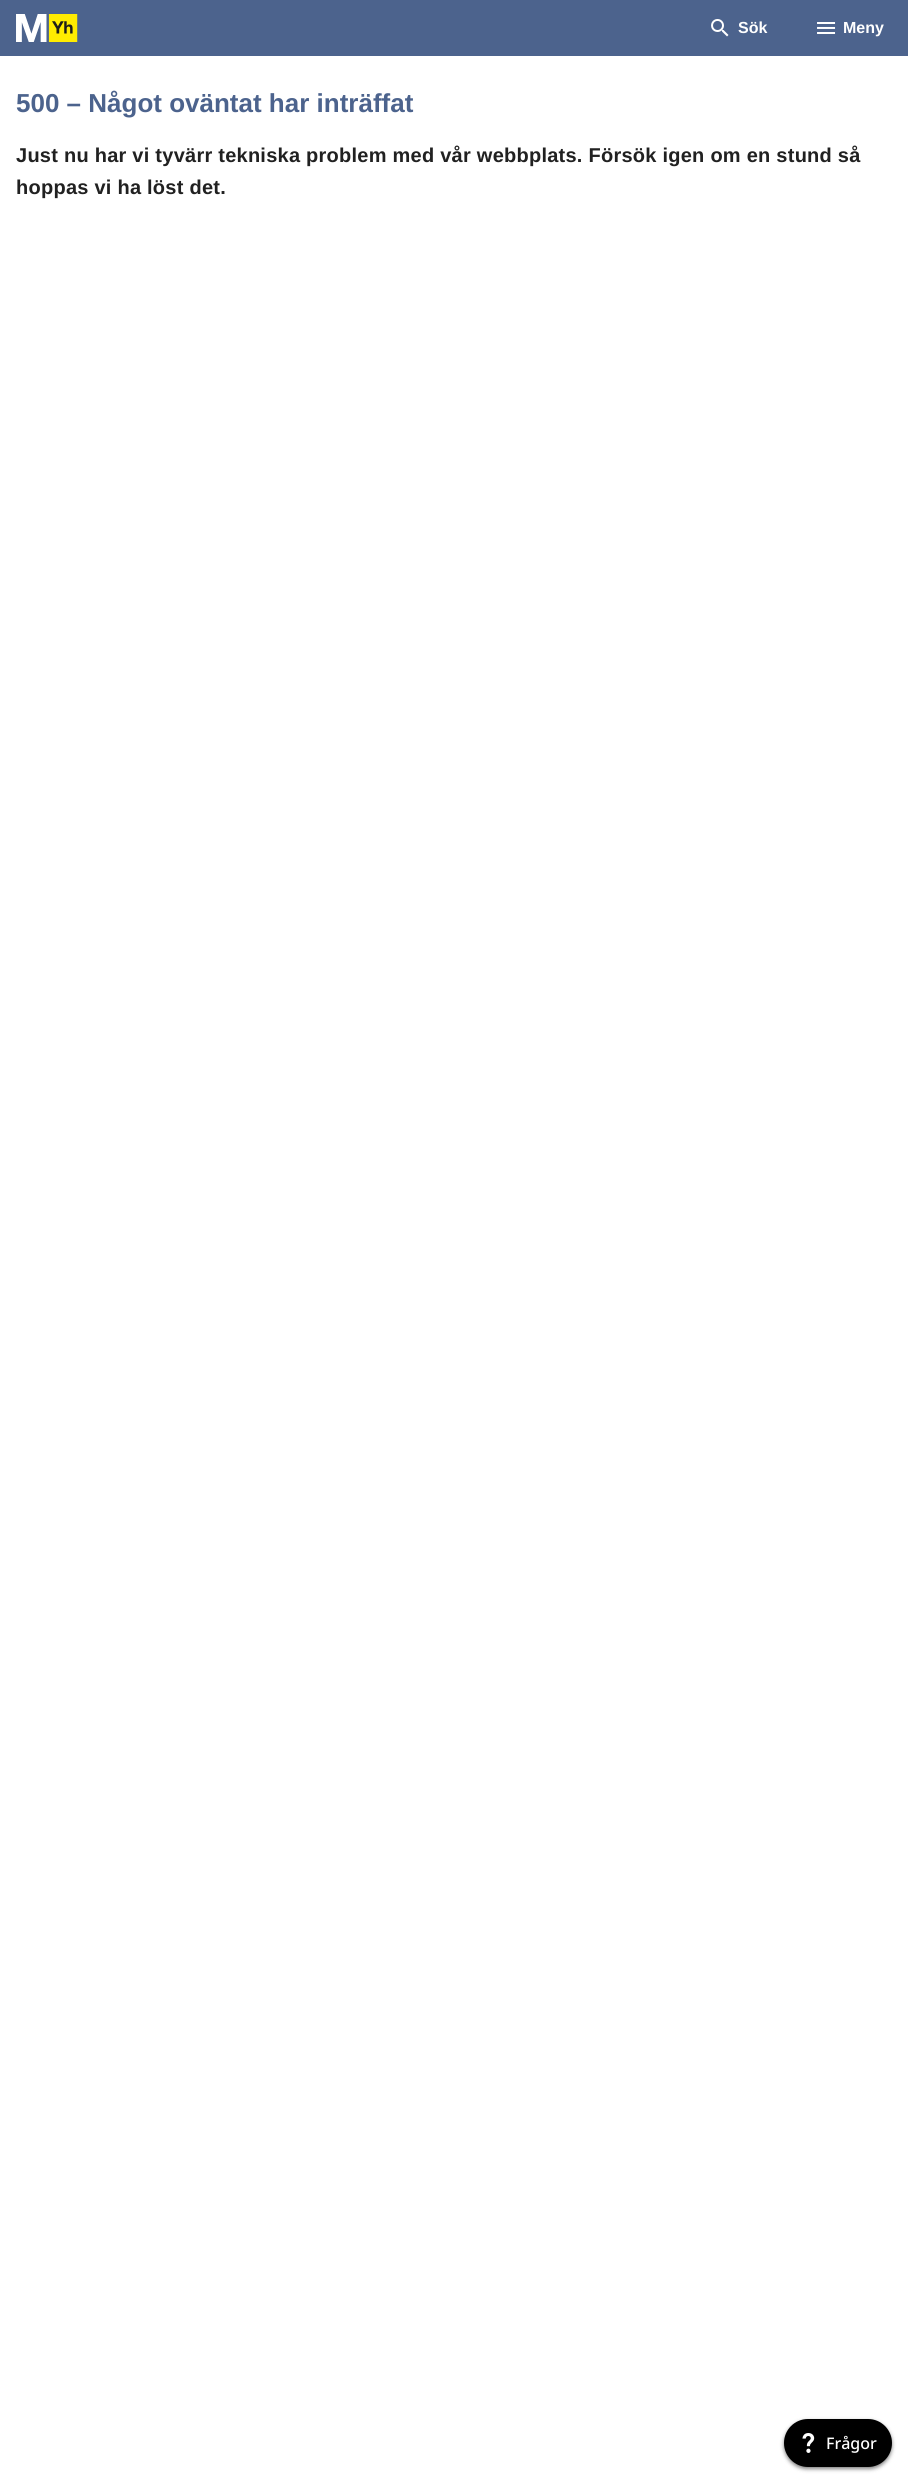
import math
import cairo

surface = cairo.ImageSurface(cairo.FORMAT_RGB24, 908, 2483)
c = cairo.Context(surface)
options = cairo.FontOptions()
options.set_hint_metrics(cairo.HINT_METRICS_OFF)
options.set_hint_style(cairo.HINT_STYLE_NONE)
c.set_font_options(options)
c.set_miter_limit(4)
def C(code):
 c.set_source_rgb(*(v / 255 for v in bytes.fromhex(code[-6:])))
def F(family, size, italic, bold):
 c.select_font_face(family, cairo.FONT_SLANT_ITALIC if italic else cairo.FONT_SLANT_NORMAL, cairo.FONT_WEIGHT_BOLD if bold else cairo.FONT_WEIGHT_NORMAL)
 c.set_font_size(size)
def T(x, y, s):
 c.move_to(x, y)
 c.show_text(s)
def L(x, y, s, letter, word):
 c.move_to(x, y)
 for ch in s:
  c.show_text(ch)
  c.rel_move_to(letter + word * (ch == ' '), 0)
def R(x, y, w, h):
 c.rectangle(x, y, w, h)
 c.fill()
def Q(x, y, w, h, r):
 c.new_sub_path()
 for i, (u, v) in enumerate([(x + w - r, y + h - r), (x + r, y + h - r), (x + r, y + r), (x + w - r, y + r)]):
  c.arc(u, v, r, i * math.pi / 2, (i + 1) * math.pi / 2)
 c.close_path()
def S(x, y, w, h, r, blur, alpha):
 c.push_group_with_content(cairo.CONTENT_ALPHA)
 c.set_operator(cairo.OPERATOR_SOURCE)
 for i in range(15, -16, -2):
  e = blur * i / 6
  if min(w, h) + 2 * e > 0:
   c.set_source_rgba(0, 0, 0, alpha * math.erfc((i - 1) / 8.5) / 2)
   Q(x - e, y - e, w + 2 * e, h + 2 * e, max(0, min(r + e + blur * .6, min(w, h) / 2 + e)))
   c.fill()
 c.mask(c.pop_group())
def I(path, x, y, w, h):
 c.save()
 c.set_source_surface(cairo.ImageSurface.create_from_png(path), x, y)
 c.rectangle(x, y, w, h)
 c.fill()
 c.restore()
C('ffffff')
c.paint()
C('4c638d')
R(0,0,908,56)
I('1.png',16,14,62,28)
I('2.png',711,19,18,18)
F('Liberation Sans',16,0,1)
C('ffffff')
T(738,33,'Sök')
I('3.png',817,22,19,12)
T(843,33,'Meny')
F('Liberation Sans',26,0,1)
C('4c638d')
T(16,112,'500 – Något oväntat har inträffat')
F('Liberation Sans',20,0,1)
C('212121')
L(16,162,'Just nu har vi tyvärr tekniska problem med vår webbplats. Försök igen om en stund så',.25,0)
L(16,194,'hoppas vi ha löst det.',.25,0)
C('000000')
S(784,2421,108,48,24,2,.5)
C('000000')
Q(784,2419,108,48,24)
c.fill()
I('4.png',802,2433,13,20)
F('Noto Sans Medium',16,0,0)
C('ffffff')
T(826,2449,'Frågor')
surface.write_to_png('o.png')
